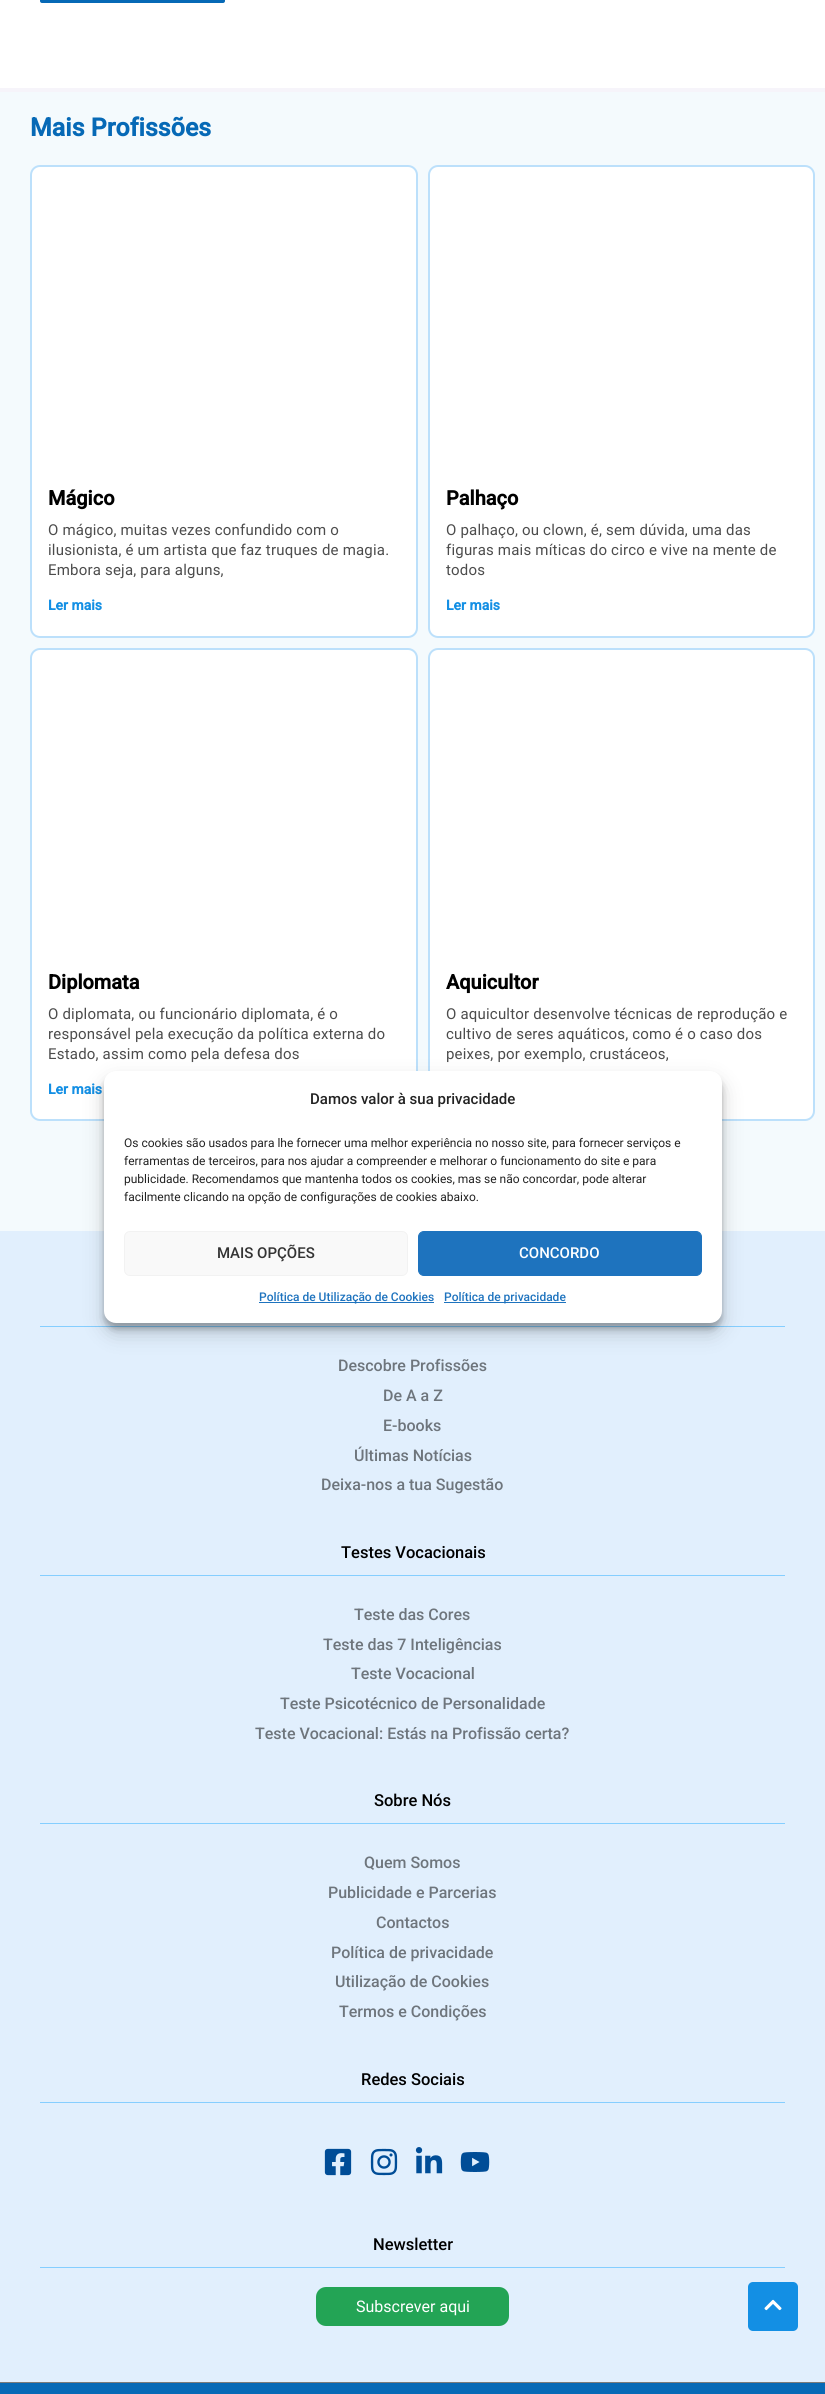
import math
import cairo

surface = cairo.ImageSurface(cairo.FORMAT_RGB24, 825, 2394)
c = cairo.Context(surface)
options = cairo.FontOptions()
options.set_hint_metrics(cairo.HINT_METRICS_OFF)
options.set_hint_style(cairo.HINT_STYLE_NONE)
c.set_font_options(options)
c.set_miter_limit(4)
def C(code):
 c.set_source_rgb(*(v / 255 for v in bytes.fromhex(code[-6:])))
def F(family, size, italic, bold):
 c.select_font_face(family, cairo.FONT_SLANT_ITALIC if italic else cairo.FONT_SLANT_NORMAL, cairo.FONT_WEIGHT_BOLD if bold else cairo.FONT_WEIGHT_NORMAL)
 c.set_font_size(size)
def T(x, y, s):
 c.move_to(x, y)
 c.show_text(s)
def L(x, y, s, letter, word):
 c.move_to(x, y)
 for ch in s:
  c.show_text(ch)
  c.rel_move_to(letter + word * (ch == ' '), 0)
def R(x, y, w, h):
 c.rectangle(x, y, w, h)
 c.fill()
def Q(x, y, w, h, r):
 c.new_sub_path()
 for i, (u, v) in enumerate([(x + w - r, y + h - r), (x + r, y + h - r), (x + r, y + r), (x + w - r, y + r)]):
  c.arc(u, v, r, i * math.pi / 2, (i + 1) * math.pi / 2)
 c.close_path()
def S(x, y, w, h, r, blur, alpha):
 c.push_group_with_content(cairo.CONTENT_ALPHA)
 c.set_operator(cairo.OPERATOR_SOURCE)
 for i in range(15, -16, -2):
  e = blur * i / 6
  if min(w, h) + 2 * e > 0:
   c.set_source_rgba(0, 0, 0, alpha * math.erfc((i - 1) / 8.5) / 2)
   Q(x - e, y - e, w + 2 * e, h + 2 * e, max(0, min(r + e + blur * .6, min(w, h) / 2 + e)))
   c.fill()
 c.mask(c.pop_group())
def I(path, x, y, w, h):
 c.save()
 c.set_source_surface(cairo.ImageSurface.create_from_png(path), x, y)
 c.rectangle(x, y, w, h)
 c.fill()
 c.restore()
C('e1effd')
c.paint()
C('ffffff')
R(0,0,825,88)
C('0669b6')
Q(40,-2,185,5,2)
c.fill()
C('138fe4')
Q(748,2282,50,49,5)
c.fill()
I('1.png',764,2299,18,12)
C('f4fafd')
R(0,92,825,1139)
C('f6f4fa')
R(0,88,825,4)
F('Roboto',25,0,1)
C('0669b6')
T(30,136,'Mais Profissões')
C('ffffff')
Q(31,166,386,471,9)
c.fill_preserve()
C('bce0fb')
c.stroke()
F('Roboto',20,0,1)
C('000000')
T(48,505,'Mágico')
F('Roboto',15,0,0)
C('4c4c4c')
L(48,535,'O mágico, muitas vezes confundido com o',.2,0)
L(48,555,'ilusionista, é um artista que faz truques de magia.',.2,0)
L(48,575,'Embora seja, para alguns,',.2,0)
F('Roboto',14,0,1)
C('138fe4')
T(48,610,'Ler mais')
C('ffffff')
Q(429,166,385,471,9)
c.fill_preserve()
C('bce0fb')
c.stroke()
F('Roboto',20,0,1)
C('000000')
T(446,505,'Palhaço')
F('Roboto',15,0,0)
C('4c4c4c')
L(446,535,'O palhaço, ou clown, é, sem dúvida, uma das',.2,0)
L(446,555,'figuras mais míticas do circo e vive na mente de',.2,0)
L(446,575,'todos',.2,0)
F('Roboto',14,0,1)
C('138fe4')
T(446,610,'Ler mais')
C('ffffff')
Q(31,649,386,471,9)
c.fill_preserve()
C('bce0fb')
c.stroke()
F('Roboto',20,0,1)
C('000000')
T(48,989,'Diplomata')
F('Roboto',15,0,0)
C('4c4c4c')
L(48,1019,'O diplomata, ou funcionário diplomata, é o',.2,0)
L(48,1039,'responsável pela execução da política externa do',.2,0)
L(48,1059,'Estado, assim como pela defesa dos',.2,0)
F('Roboto',14,0,1)
C('138fe4')
T(48,1094,'Ler mais')
C('ffffff')
Q(429,649,385,471,9)
c.fill_preserve()
C('bce0fb')
c.stroke()
F('Roboto',20,0,1)
C('000000')
T(446,989,'Aquicultor')
F('Roboto',15,0,0)
C('4c4c4c')
L(446,1019,'O aquicultor desenvolve técnicas de reprodução e',.2,0)
L(446,1039,'cultivo de seres aquáticos, como é o caso dos',.2,0)
L(446,1059,'peixes, por exemplo, crustáceos,',.2,0)
C('85ceff')
R(40,1326,745,1)
F('Roboto Medium',16,0,0)
C('6e757c')
T(338,1371,'Descobre Profissões')
T(383,1401,'De A a Z')
T(383,1431,'E-books')
T(354,1461,'Últimas Notícias')
T(321,1490,'Deixa-nos a tua Sugestão')
F('Roboto Medium',16.5,0,0)
C('000000')
T(341,1558,'Testes Vocacionais')
C('85ceff')
R(40,1575,745,1)
F('Roboto Medium',16,0,0)
C('6e757c')
T(354,1620,'Teste das Cores')
T(323,1650,'Teste das 7 Inteligências')
T(351,1679,'Teste Vocacional')
T(280,1709,'Teste Psicotécnico de Personalidade')
T(255,1739,'Teste Vocacional: Estás na Profissão certa?')
F('Roboto Medium',16.5,0,0)
C('000000')
T(374,1806,'Sobre Nós')
C('85ceff')
R(40,1823,745,1)
F('Roboto Medium',16,0,0)
C('6e757c')
T(364,1868,'Quem Somos')
T(328,1898,'Publicidade e Parcerias')
T(376,1928,'Contactos')
T(331,1958,'Política de privacidade')
T(335,1987,'Utilização de Cookies')
T(339,2017,'Termos e Condições')
F('Roboto Medium',16.5,0,0)
C('000000')
T(361,2085,'Redes Sociais')
C('85ceff')
R(40,2102,745,1)
I('2.png',324,2148,28,28)
I('3.png',370,2148,28,28)
I('4.png',415,2147,28,27)
I('5.png',460,2152,30,20)
C('000000')
T(373,2250,'Newsletter')
C('85ceff')
R(40,2267,745,1)
C('23a455')
Q(316,2287,193,39,10)
c.fill()
F('Roboto',16,0,0)
C('ffffff')
T(356,2312,'Subscrever aqui')
C('0669b6')
R(0,2383,825,11)
C('7a7a7a')
R(0,2382,825,1)
C('000000')
S(104,1077,618,252,12,3,.23)
S(104,1081,618,252,12,10,.19)
C('ffffff')
Q(104,1071,618,252,12)
c.fill()
F('Roboto Medium',15,0,0)
C('222222')
T(310,1104,'Damos valor à sua privacidade')
F('Roboto',12,0,0)
T(124,1147,'Os cookies são usados para lhe fornecer uma melhor experiência no nosso site, para fornecer serviços e')
T(124,1165,'ferramentas de terceiros, para nos ajudar a compreender e melhorar o funcionamento do site e para')
T(124,1183,'publicidade. Recomendamos que mantenha todos os cookies, mas se não concordar, pode alterar')
T(124,1201,'facilmente clicando na opção de configurações de cookies abaixo.')
C('f9f9f9')
Q(124.5,1231.5,283,44,5.5)
c.fill_preserve()
C('f2f2f2')
c.set_line_width(1)
c.stroke()
F('Roboto Medium',15,0,0)
C('333333')
T(217,1258,'MAIS OPÇÕES')
C('1e73be')
Q(418.5,1231.5,283,44,5.5)
c.fill_preserve()
c.stroke()
C('ffffff')
T(519,1258,'CONCORDO')
C('1e73be')
R(259,1302,175,1)
F('Roboto Medium',12,0,0)
T(259,1301,'Política de Utilização de Cookies')
R(444,1302,122,1)
T(444,1301,'Política de privacidade')
surface.write_to_png('o.png')
